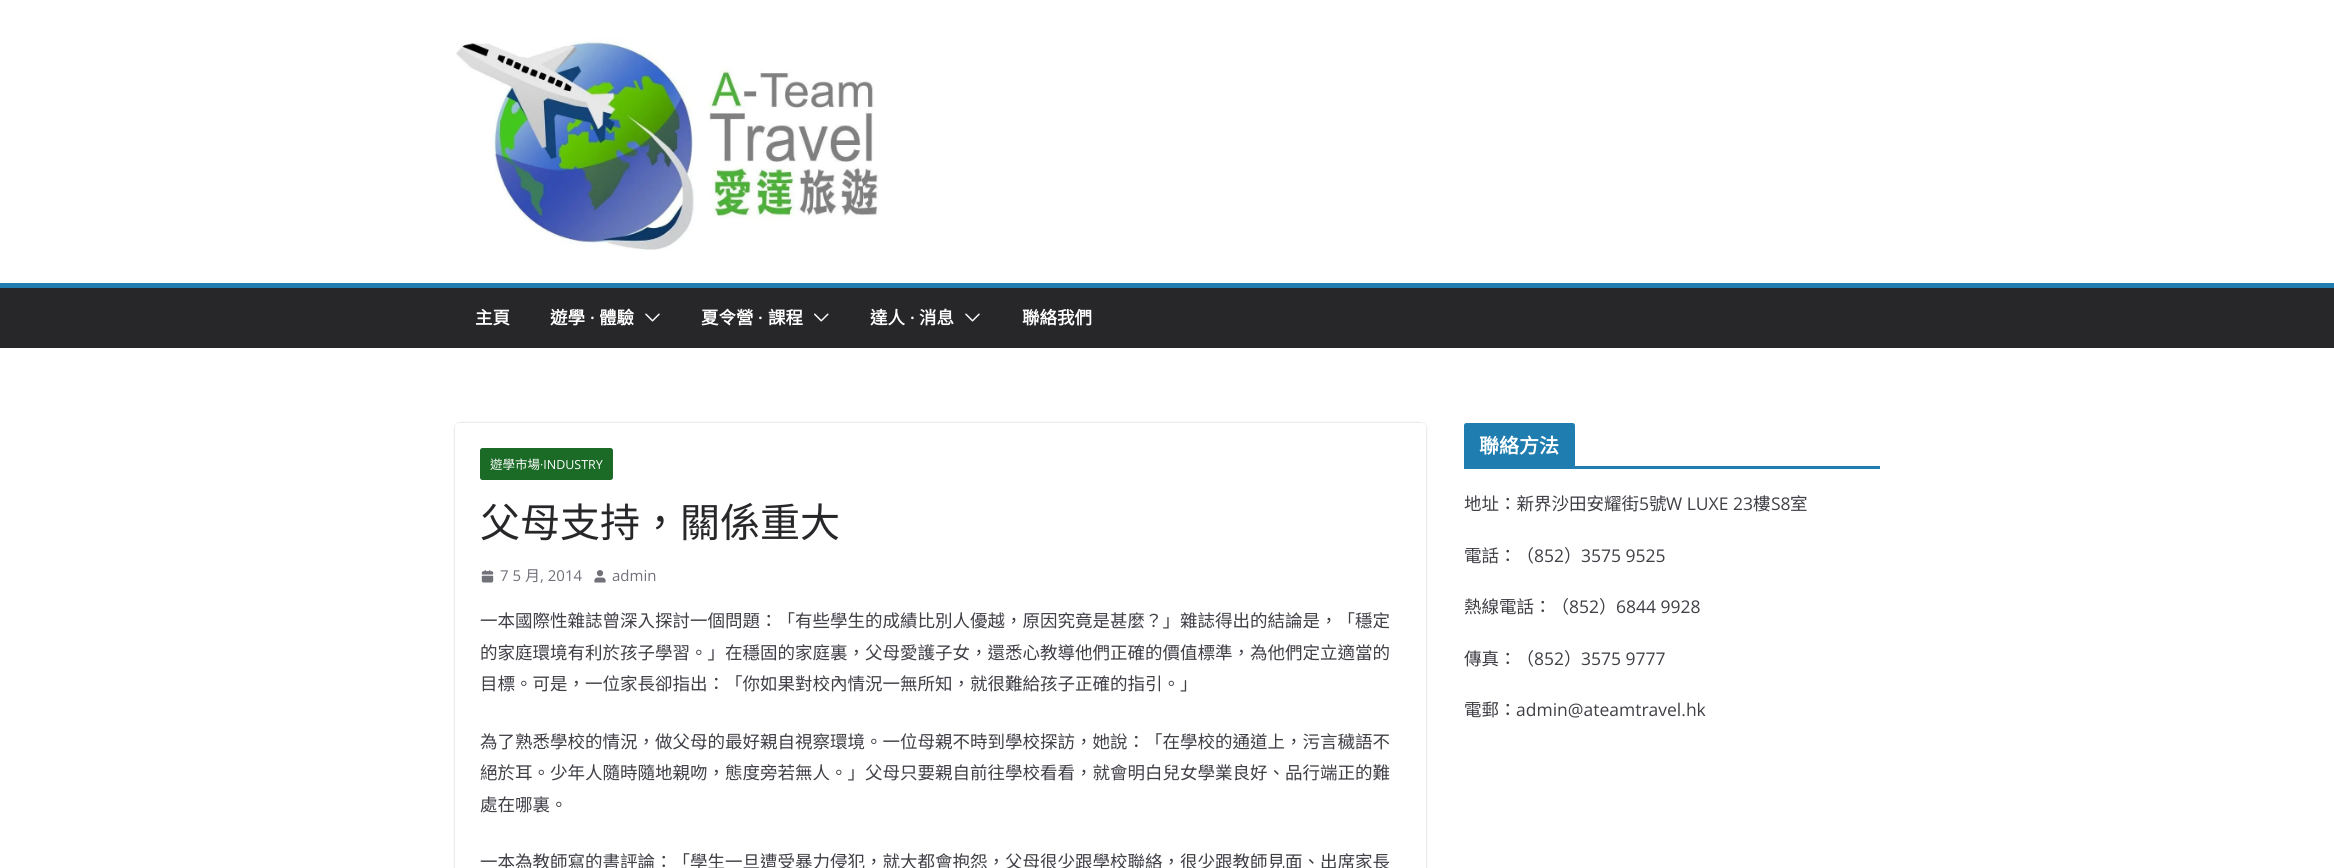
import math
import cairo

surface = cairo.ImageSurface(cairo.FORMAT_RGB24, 2334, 868)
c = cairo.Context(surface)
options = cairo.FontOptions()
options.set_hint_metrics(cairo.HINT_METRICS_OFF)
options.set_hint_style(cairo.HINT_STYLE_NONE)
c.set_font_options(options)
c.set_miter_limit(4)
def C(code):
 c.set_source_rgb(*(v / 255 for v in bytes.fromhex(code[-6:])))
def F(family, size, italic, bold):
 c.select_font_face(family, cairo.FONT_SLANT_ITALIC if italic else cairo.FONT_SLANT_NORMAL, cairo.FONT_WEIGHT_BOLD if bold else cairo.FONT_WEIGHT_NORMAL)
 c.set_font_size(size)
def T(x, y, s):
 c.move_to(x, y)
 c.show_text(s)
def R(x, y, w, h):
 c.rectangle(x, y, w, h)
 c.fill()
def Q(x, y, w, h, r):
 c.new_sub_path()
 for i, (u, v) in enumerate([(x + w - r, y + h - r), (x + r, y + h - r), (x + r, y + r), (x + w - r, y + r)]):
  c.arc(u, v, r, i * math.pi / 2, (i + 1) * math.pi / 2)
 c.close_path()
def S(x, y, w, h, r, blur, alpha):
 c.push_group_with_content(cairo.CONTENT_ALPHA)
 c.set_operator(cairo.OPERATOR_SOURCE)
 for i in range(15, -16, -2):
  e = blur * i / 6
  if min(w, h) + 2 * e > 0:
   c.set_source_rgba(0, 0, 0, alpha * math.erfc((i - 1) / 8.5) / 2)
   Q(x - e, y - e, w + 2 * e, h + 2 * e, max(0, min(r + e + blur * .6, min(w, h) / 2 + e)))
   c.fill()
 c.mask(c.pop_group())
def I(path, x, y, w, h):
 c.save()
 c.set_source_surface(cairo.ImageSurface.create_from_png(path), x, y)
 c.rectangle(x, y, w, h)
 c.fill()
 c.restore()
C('ffffff')
c.paint()
I('1.png',456,38,423,212)
C('27272a')
R(0,288,2334,60)
C('207daf')
R(0,283,2334,5)
F('Noto Sans CJK HK',17.5,0,1)
C('ffffff')
T(475,324,'主頁')
T(550,324,'遊學')
F('Open Sans SemiBold',17.5,0,0)
T(590,324,'·')
F('Noto Sans CJK HK',17.5,0,1)
T(599,324,'體驗')
I('2.png',645,313,15,9)
T(701,324,'夏令營')
F('Open Sans SemiBold',17.5,0,0)
T(758,324,'·')
F('Noto Sans CJK HK',17.5,0,1)
T(768,324,'課程')
I('3.png',814,313,15,9)
T(870,324,'達人')
F('Open Sans SemiBold',17.5,0,0)
T(910,324,'·')
F('Noto Sans CJK HK',17.5,0,1)
T(919,324,'消息')
I('2.png',965,313,15,9)
T(1022,324,'聯絡我們')
c.save()
c.set_fill_rule(cairo.FILL_RULE_EVEN_ODD)
c.new_path()
c.move_to(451,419)
c.line_to(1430,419)
c.line_to(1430,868)
c.line_to(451,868)
c.close_path()
c.move_to(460,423)
c.line_to(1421,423)
c.curve_to(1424,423,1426,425,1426,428)
c.line_to(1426,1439)
c.curve_to(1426,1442,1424,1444,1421,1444)
c.line_to(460,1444)
c.curve_to(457,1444,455,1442,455,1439)
c.line_to(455,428)
c.curve_to(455,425,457,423,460,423)
c.close_path()
c.clip()
C('000000')
S(455,423,971,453,5,1,.24)
c.restore()
C('1b6b27')
Q(480,448,133,32,2.5)
c.fill()
F('Noto Sans CJK HK',12.5,0,0)
C('ffffff')
T(490,469,'遊學市場')
F('Open Sans',12.5,0,0)
T(540,469,'·INDUSTRY')
F('Noto Sans CJK HK',40,0,0)
C('27272a')
T(480,537,'父母支持，關係重大')
I('4.png',481,570,13,13)
F('Open Sans',15,0,0)
C('71717a')
T(500,581,'7 5')
F('Noto Sans CJK HK',15,0,0)
T(525,581,'月')
F('Open Sans',15,0,0)
T(540,581,', 2014')
I('5.png',594,570,12,13)
T(612,581,'admin')
F('Noto Sans CJK HK',17.5,0,0)
C('3f3f46')
T(480,627,'一本國際性雜誌曾深入探討一個問題：「有些學生的成績比別人優越，原因究竟是甚麼？」雜誌得出的結論是，「穩定')
T(480,659,'的家庭環境有利於孩子學習。」在穩固的家庭裏，父母愛護子女，還悉心教導他們正確的價值標準，為他們定立適當的')
T(480,690,'目標。可是，一位家長卻指出：「你如果對校內情況一無所知，就很難給孩子正確的指引。」')
T(480,748,'為了熟悉學校的情況，做父母的最好親自視察環境。一位母親不時到學校探訪，她說：「在學校的通道上，污言穢語不')
T(480,779,'絕於耳。少年人隨時隨地親吻，態度旁若無人。」父母只要親自前往學校看看，就會明白兒女學業良好、品行端正的難')
T(480,811,'處在哪裏。')
T(480,868,'一本為教師寫的書評論：「學生一旦遭受暴力侵犯，就大都會抱怨，父母很少跟學校聯絡，很少跟教師見面、出席家長')
C('207daf')
R(1464,466,416,3)
c.new_path()
c.move_to(1466.5,423)
c.line_to(1572.5,423)
c.curve_to(1574,423,1575,424,1575,425.5)
c.line_to(1575,466)
c.line_to(1464,466)
c.line_to(1464,425.5)
c.curve_to(1464,424,1465,423,1466.5,423)
c.close_path()
c.fill()
F('Noto Sans CJK HK',20,0,1)
C('ffffff')
T(1479,453,'聯絡方法')
F('Noto Sans CJK HK',17.5,0,0)
C('3f3f46')
T(1464,510,'地址：新界沙田安耀街')
F('Open Sans',17.5,0,0)
T(1639,510,'5')
F('Noto Sans CJK HK',17.5,0,0)
T(1649,510,'號')
F('Open Sans',17.5,0,0)
T(1666,510,'W LUXE 23')
F('Noto Sans CJK HK',17.5,0,0)
T(1753,510,'樓')
F('Open Sans',17.5,0,0)
T(1771,510,'S8')
F('Noto Sans CJK HK',17.5,0,0)
T(1790,510,'室')
T(1464,562,'電話：（')
F('Open Sans',17.5,0,0)
T(1534,562,'852')
F('Noto Sans CJK HK',17.5,0,0)
T(1564,562,'）')
F('Open Sans',17.5,0,0)
T(1581,562,'3575 9525')
F('Noto Sans CJK HK',17.5,0,0)
T(1464,613,'熱線電話：（')
F('Open Sans',17.5,0,0)
T(1569,613,'852')
F('Noto Sans CJK HK',17.5,0,0)
T(1599,613,'）')
F('Open Sans',17.5,0,0)
T(1616,613,'6844 9928')
F('Noto Sans CJK HK',17.5,0,0)
T(1464,665,'傳真：（')
F('Open Sans',17.5,0,0)
T(1534,665,'852')
F('Noto Sans CJK HK',17.5,0,0)
T(1564,665,'）')
F('Open Sans',17.5,0,0)
T(1581,665,'3575 9777')
F('Noto Sans CJK HK',17.5,0,0)
T(1464,716,'電郵：')
F('Open Sans',17.5,0,0)
T(1516,716,'admin@ateamtravel.hk')
surface.write_to_png('o.png')
